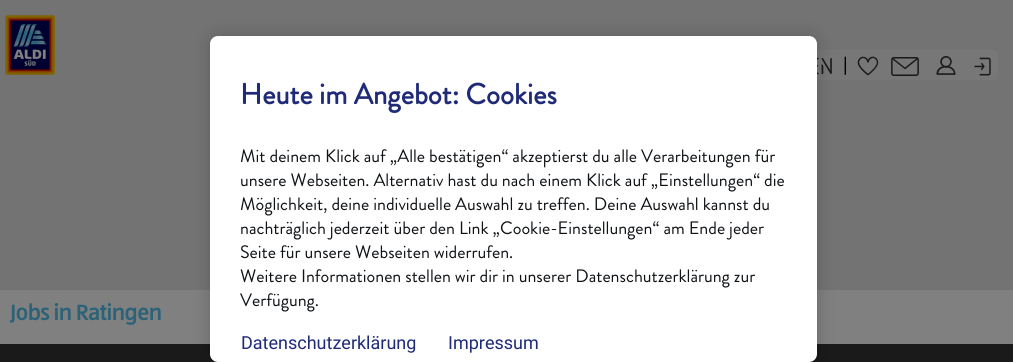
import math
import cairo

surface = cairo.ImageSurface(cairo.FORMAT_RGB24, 1013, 362)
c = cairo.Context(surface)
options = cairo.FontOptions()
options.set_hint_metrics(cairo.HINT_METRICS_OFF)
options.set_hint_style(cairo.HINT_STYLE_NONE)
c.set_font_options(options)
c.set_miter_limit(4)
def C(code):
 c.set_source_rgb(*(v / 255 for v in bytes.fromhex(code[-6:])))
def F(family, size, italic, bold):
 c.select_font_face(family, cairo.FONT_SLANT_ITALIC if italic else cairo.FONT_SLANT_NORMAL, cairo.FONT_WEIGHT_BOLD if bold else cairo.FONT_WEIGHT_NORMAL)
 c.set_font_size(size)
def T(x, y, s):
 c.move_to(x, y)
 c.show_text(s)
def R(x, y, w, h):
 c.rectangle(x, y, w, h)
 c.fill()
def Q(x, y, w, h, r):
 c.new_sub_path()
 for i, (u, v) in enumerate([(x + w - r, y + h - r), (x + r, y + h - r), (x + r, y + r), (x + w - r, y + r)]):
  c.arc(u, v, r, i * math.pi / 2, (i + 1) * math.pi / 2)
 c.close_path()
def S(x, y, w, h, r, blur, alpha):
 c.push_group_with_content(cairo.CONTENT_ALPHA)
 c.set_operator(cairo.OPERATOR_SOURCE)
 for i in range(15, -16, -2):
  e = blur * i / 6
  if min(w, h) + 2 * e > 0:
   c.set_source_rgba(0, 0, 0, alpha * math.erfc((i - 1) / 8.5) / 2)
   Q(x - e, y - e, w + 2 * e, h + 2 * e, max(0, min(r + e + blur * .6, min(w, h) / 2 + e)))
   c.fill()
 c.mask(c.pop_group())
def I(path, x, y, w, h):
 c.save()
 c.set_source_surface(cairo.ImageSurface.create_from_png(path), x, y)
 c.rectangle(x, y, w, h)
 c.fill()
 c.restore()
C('737373')
c.paint()
I('1.png',5,15,50,60)
C('777777')
Q(802,50,196,30,5)
c.fill()
I('2.png',817,57,15,18)
F('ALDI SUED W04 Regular',18,0,0)
C('000000')
T(843,71,'|')
I('3.png',857,56,22,20)
I('4.png',891,57,28,19)
I('5.png',936,56,20,19)
I('6.png',974,57,17,19)
C('808080')
R(0,290,1013,54)
F('ALDI SUED W04 Regular',22,0,1)
C('2b6278')
T(10,320,'Jobs in Ratingen')
C('1a1a1a')
R(0,344,1013,18)
C('000000')
S(210,36,607,326,8,9,.2)
C('ffffff')
Q(210,36,607,326,8)
c.fill()
F('Brandon Grotesque',29,0,1)
C('202b78')
T(240,104,'Heute im Angebot: Cookies')
F('Brandon Grotesque',18,0,0)
C('101316')
T(240,162,'Mit deinem Klick auf „Alle bestätigen“ akzeptierst du alle Verarbeitungen für')
T(240,186,'unsere Webseiten. Alternativ hast du nach einem Klick auf „Einstellungen“ die')
T(240,210,'Möglichkeit, deine individuelle Auswahl zu treffen. Deine Auswahl kannst du')
T(240,234,'nachträglich jederzeit über den Link „Cookie-Einstellungen“ am Ende jeder')
T(240,258,'Seite für unsere Webseiten widerrufen.')
T(240,282,'Weitere Informationen stellen wir dir in unserer Datenschutzerklärung zur')
T(240,306,'Verfügung.')
F('Roboto',18,0,0)
C('202b78')
T(241,349,'Datenschutzerklärung')
T(448,349,'Impressum')
surface.write_to_png('o.png')
